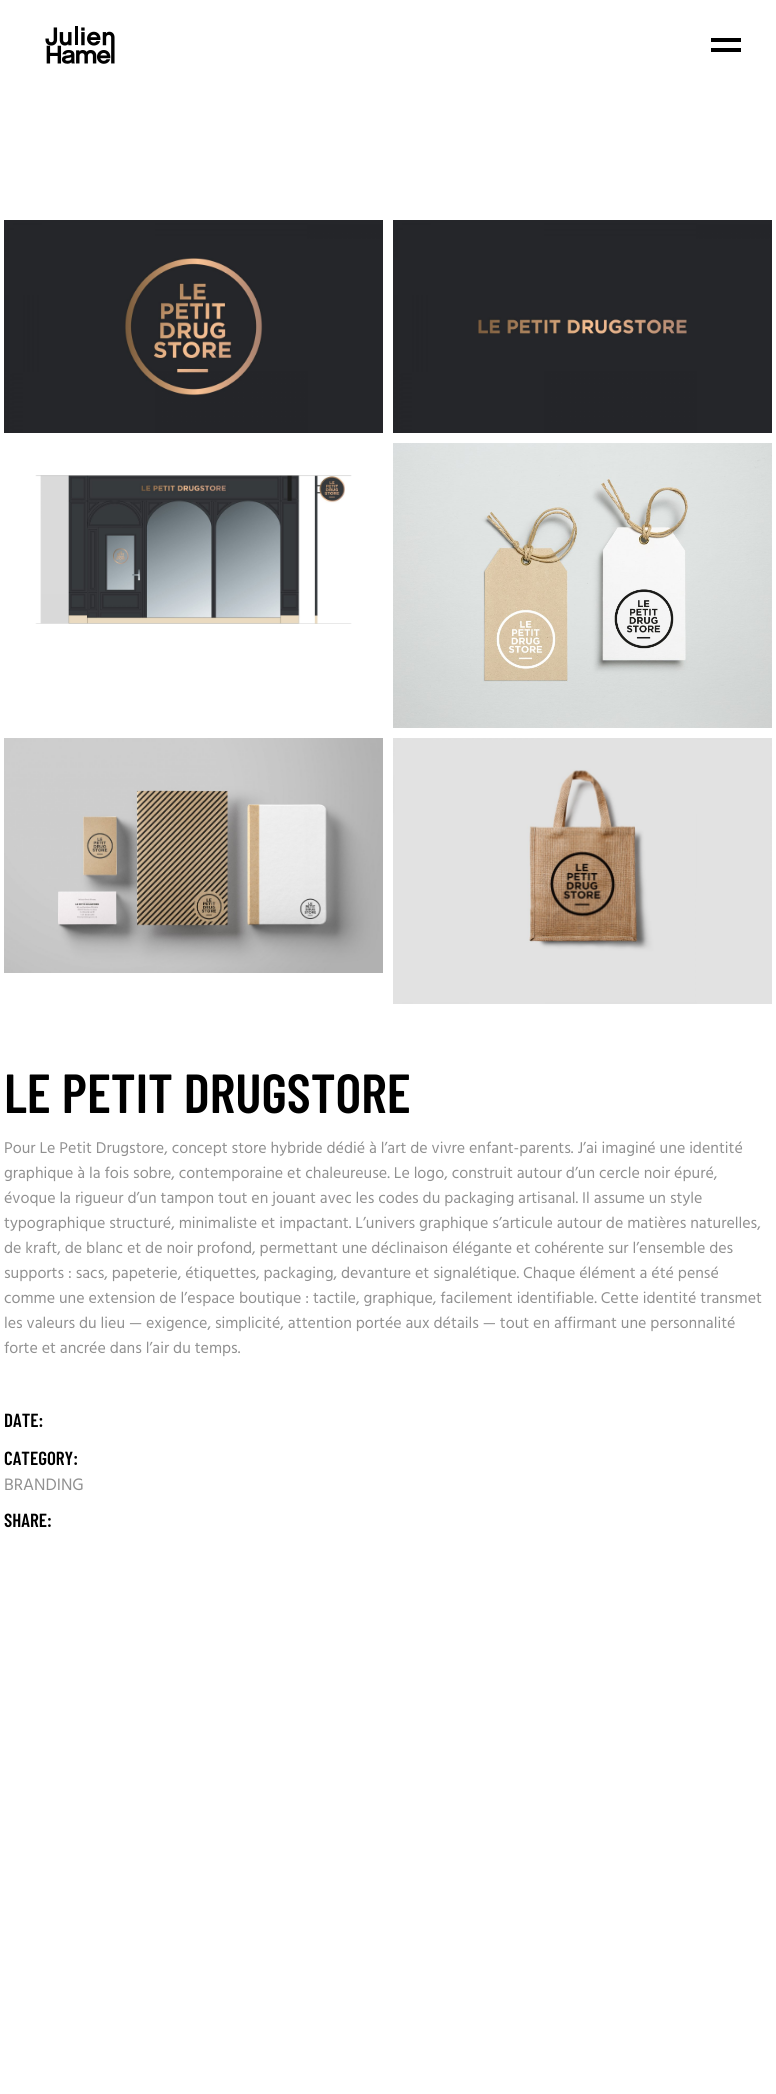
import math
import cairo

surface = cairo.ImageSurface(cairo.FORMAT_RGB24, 776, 2094)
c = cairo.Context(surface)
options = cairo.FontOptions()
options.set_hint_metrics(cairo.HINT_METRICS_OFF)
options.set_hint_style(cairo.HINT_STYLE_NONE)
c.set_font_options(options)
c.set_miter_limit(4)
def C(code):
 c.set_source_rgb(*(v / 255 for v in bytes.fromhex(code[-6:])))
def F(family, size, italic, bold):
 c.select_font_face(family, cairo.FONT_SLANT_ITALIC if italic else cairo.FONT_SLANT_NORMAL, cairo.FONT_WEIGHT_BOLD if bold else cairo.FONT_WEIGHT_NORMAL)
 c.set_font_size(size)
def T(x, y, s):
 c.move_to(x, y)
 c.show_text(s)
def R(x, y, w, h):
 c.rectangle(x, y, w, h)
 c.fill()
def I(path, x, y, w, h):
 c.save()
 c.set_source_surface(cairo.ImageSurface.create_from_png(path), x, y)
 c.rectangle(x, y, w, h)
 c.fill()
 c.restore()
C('ffffff')
c.paint()
I('1.png',45,26,70,38)
C('000000')
R(711,38,30,4)
R(711,48,30,4)
I('2.png',4,220,379,213)
I('3.png',393,220,379,213)
I('4.png',35,475,317,149)
I('5.png',393,443,379,285)
I('6.png',4,738,379,235)
I('7.png',393,738,379,266)
F('Barlow Condensed SemiBold',55,0,0)
T(4,1113,'LE PETIT DRUGSTORE')
F('Hind',16,0,0)
C('909090')
T(4,1153,'Pour Le Petit Drugstore, concept store hybride dédié à l’art de vivre enfant-parents. J’ai imaginé une identité')
T(4,1178,'graphique à la fois sobre, contemporaine et chaleureuse. Le logo, construit autour d’un cercle noir épuré,')
T(4,1203,'évoque la rigueur d’un tampon tout en jouant avec les codes du packaging artisanal. Il assume un style')
T(4,1228,'typographique structuré, minimaliste et impactant. L’univers graphique s’articule autour de matières naturelles,')
T(4,1253,'de kraft, de blanc et de noir profond, permettant une déclinaison élégante et cohérente sur l’ensemble des')
T(4,1278,'supports : sacs, papeterie, étiquettes, packaging, devanture et signalétique. Chaque élément a été pensé')
T(4,1303,'comme une extension de l’espace boutique : tactile, graphique, facilement identifiable. Cette identité transmet')
T(4,1328,'les valeurs du lieu — exigence, simplicité, attention portée aux détails — tout en affirmant une personnalité')
T(4,1353,'forte et ancrée dans l’air du temps.')
F('Barlow Condensed SemiBold',19,0,0)
C('000000')
T(4,1427,'DATE:')
T(4,1465,'CATEGORY:')
F('Hind',17,0,0)
C('909090')
T(4,1490,'BRANDING')
F('Barlow Condensed SemiBold',19,0,0)
C('000000')
T(4,1527,'SHARE:')
surface.write_to_png('o.png')
